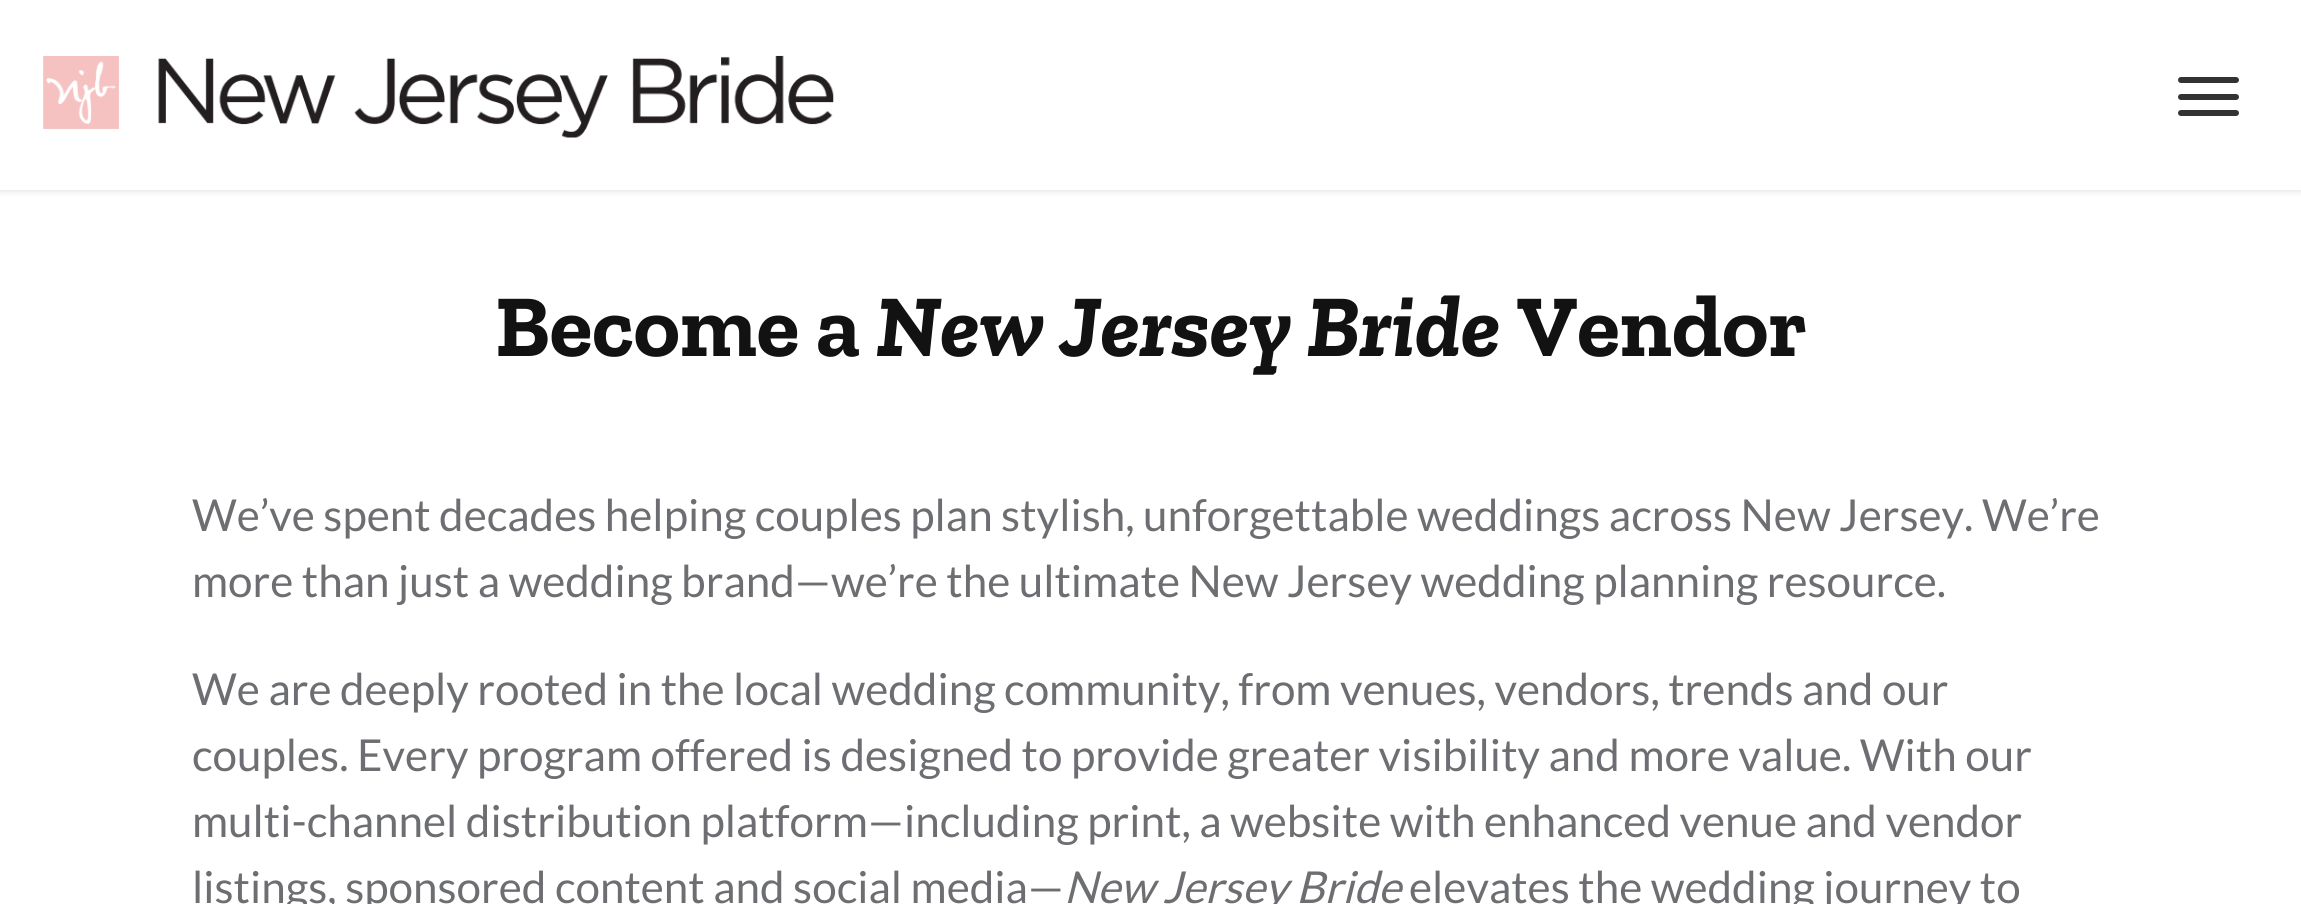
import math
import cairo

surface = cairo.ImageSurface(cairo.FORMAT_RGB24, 2301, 904)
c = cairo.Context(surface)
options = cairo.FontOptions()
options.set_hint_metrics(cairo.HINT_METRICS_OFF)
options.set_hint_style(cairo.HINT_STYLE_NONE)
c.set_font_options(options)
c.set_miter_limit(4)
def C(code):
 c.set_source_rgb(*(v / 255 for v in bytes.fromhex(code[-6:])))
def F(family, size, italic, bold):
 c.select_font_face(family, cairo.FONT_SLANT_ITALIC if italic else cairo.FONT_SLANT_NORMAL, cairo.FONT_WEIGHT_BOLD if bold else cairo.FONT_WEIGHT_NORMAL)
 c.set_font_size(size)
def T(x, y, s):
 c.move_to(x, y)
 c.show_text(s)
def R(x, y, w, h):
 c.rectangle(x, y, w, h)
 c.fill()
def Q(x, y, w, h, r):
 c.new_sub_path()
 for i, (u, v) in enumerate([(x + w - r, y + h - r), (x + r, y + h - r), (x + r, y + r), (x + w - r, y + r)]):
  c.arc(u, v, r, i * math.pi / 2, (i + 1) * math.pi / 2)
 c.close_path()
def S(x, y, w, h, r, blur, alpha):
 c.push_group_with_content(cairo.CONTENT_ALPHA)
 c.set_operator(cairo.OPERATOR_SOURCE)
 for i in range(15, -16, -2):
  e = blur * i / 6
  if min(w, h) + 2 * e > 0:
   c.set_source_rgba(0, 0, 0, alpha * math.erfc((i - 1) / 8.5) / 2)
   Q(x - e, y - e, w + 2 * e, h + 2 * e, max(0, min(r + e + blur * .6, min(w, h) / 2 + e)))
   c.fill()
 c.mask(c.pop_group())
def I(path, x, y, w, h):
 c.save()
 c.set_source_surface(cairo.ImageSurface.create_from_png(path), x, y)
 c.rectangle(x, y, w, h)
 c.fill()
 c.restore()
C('ffffff')
c.paint()
C('000000')
S(0,0,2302,190,0,4,.15)
C('ffffff')
R(0,0,2301,190)
I('1.png',43,55,791,83)
C('333333')
Q(2178,77,61,6,3)
c.fill()
Q(2178,94,61,6,3)
c.fill()
Q(2178,110,61,6,3)
c.fill()
F('Zilla Slab',88,0,1)
C('121212')
T(495,356,'Become a')
F('Zilla Slab',88,1,1)
T(876,356,'New Jersey Bride')
F('Zilla Slab',88,0,1)
T(1517,356,'Vendor')
F('Lato',44,0,0)
C('6d6e71')
T(192,531,'We’ve spent decades helping couples plan stylish, unforgettable weddings across New Jersey. We’re')
T(192,597,'more than just a wedding brand—we’re the ultimate New Jersey wedding planning resource.')
T(192,705,'We are deeply rooted in the local wedding community, from venues, vendors, trends and our')
T(192,771,'couples. Every program offered is designed to provide greater visibility and more value. With our')
T(192,837,'multi-channel distribution platform—including print, a website with enhanced venue and vendor')
T(192,903,'listings, sponsored content and social media—')
F('Lato',44,1,0)
T(1064,903,'New Jersey Bride')
F('Lato',44,0,0)
T(1409,903,'elevates the wedding journey to')
surface.write_to_png('o.png')
